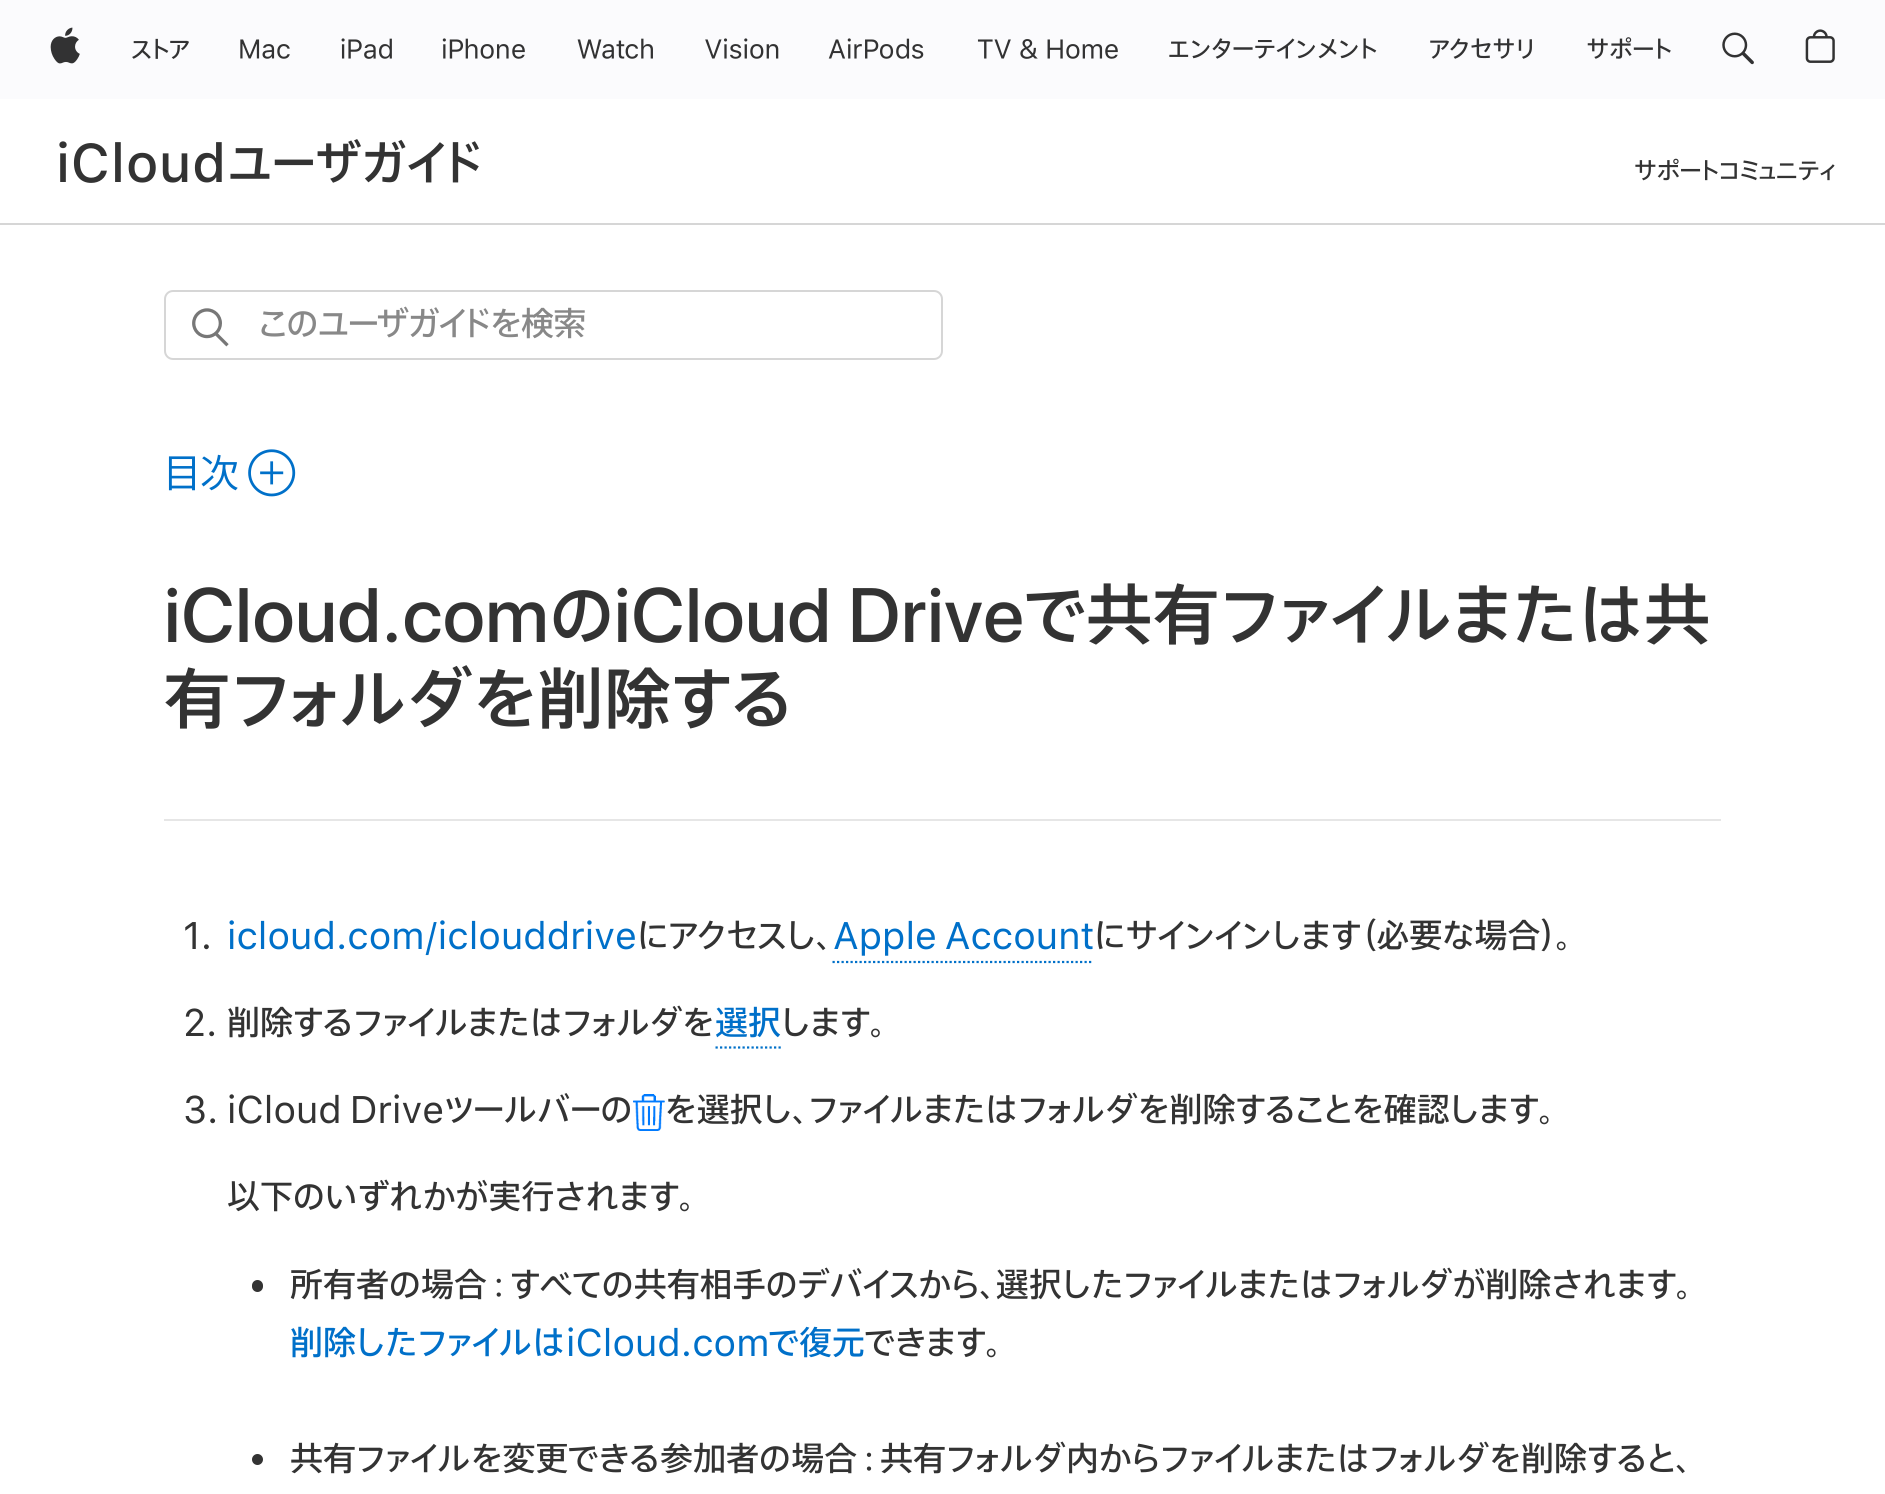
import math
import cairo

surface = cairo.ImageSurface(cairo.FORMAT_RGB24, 1885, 1494)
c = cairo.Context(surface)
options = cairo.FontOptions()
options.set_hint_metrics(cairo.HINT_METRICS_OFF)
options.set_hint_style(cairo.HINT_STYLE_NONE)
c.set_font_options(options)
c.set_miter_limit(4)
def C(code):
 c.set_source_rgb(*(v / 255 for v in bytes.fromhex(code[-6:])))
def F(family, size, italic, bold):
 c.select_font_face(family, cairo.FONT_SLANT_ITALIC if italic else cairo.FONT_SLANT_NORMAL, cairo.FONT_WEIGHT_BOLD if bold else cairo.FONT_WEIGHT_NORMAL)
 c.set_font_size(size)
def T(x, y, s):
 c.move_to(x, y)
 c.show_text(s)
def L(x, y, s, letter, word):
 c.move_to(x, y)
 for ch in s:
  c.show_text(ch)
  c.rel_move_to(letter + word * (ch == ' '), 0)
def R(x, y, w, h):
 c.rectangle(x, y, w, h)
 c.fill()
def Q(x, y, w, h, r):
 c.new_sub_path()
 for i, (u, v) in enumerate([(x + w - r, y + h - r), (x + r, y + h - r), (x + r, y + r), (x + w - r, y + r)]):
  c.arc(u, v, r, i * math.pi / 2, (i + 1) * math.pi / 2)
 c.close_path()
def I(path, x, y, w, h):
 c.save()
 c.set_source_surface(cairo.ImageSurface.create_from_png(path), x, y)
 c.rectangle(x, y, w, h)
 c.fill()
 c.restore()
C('ffffff')
c.paint()
C('fbfbfd')
R(0,0,1885,99)
I('1.png',50,27,30,37)
I('2.png',132,38,57,21)
I('3.png',240,39,50,20)
I('4.png',341,38,51,21)
I('5.png',442,38,83,21)
I('6.png',577,38,76,21)
I('7.png',705,38,74,21)
I('8.png',828,38,96,21)
I('9.png',977,39,141,20)
I('10.png',1169,38,208,21)
I('11.png',1430,38,102,21)
I('12.png',1587,37,84,22)
I('13.png',1722,32,32,33)
I('14.png',1805,29,30,34)
F('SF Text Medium',54,0,0)
C('333333')
L(56,182,'iCloud',.75,0)
F('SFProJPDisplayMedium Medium',54,0,0)
L(228,182,'ユーザガイド',.75,0)
F('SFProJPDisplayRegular',27,0,0)
T(1634,180,'サポートコミュニティ')
C('d6d6d6')
R(0,223,1885,2)
Q(165,291,777,68,8)
c.stroke()
I('15.png',192,308,37,39)
F('SFProJPDisplayRegular',38.25,0,0)
C('888888')
L(259,337,'このユーザガイドを検索',-.75,0)
F('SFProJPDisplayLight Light',45,0,0)
C('0070c9')
L(164,489,'目次',.75,0)
I('16.png',248,449,48,48)
F('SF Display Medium',76.5,0,0)
C('333333')
L(164,642,'iCloud.com',.75,0)
F('SFProJPDisplayMedium Medium',76.5,0,0)
L(550,642,'の',.75,0)
F('SF Display Medium',76.5,0,0)
L(614,642,'iCloud Drive',.75,0)
F('SFProJPDisplayMedium Medium',76.5,0,0)
L(1025,642,'で共有ファイルまたは共',.75,0)
L(164,726,'有フォルダを削除する',.75,0)
C('e6e6e6')
R(164,819,1557,2)
F('SF Text',38.25,0,0)
C('333333')
T(183,949,'1.')
C('0070c9')
T(227,949,'icloud.com/iclouddrive')
F('SFProJPDisplayRegular',38.25,0,0)
C('333333')
T(637,949,'にアクセスし、')
F('SF Text',38.25,0,0)
C('0070c9')
L(833,949,'Apple Account',0,-3)
c.new_path()
c.move_to(832.5,962)
c.line_to(1093.5,962)
c.set_line_width(2.2)
c.set_dash([2.25,2.25])
c.stroke()
F('SFProJPDisplayRegular',38.25,0,0)
C('333333')
T(1094,949,'にサインインします（必要な場合）。')
F('SF Text',38.25,0,0)
T(183,1036,'2.')
F('SFProJPDisplayRegular',38.25,0,0)
T(227,1036,'削除するファイルまたはフォルダを')
C('0070c9')
T(715,1036,'選択')
c.new_path()
c.move_to(715.5,1047.5)
c.line_to(781,1047.5)
c.stroke()
C('333333')
T(781,1036,'します。')
F('SF Text',38.25,0,0)
T(183,1123,'3.')
L(227,1123,'iCloud Drive',0,-3)
F('SFProJPDisplayRegular',38.25,0,0)
T(444,1123,'ツールバーの')
I('17.png',633,1094,32,37)
T(665,1123,'を選択し、ファイルまたはフォルダを削除することを確認します。')
T(227,1210,'以下のいずれかが実行されます。')
Q(252,1280,11,12,5.5)
c.fill()
T(290,1298,'所有者の場合：すべての共有相手のデバイスから、選択したファイルまたはフォルダが削除されます。')
C('0070c9')
T(290,1356,'削除したファイルは')
F('SF Text',38.25,0,0)
T(566,1356,'iCloud.com')
F('SFProJPDisplayRegular',38.25,0,0)
T(769,1356,'で復元')
C('333333')
T(865,1356,'できます。')
c.new_path()
c.arc(257.5,1459.5,5.5,0,2 * math.pi)
c.fill()
T(290,1472,'共有ファイルを変更できる参加者の場合：共有フォルダ内からファイルまたはフォルダを削除すると、')
surface.write_to_png('o.png')
